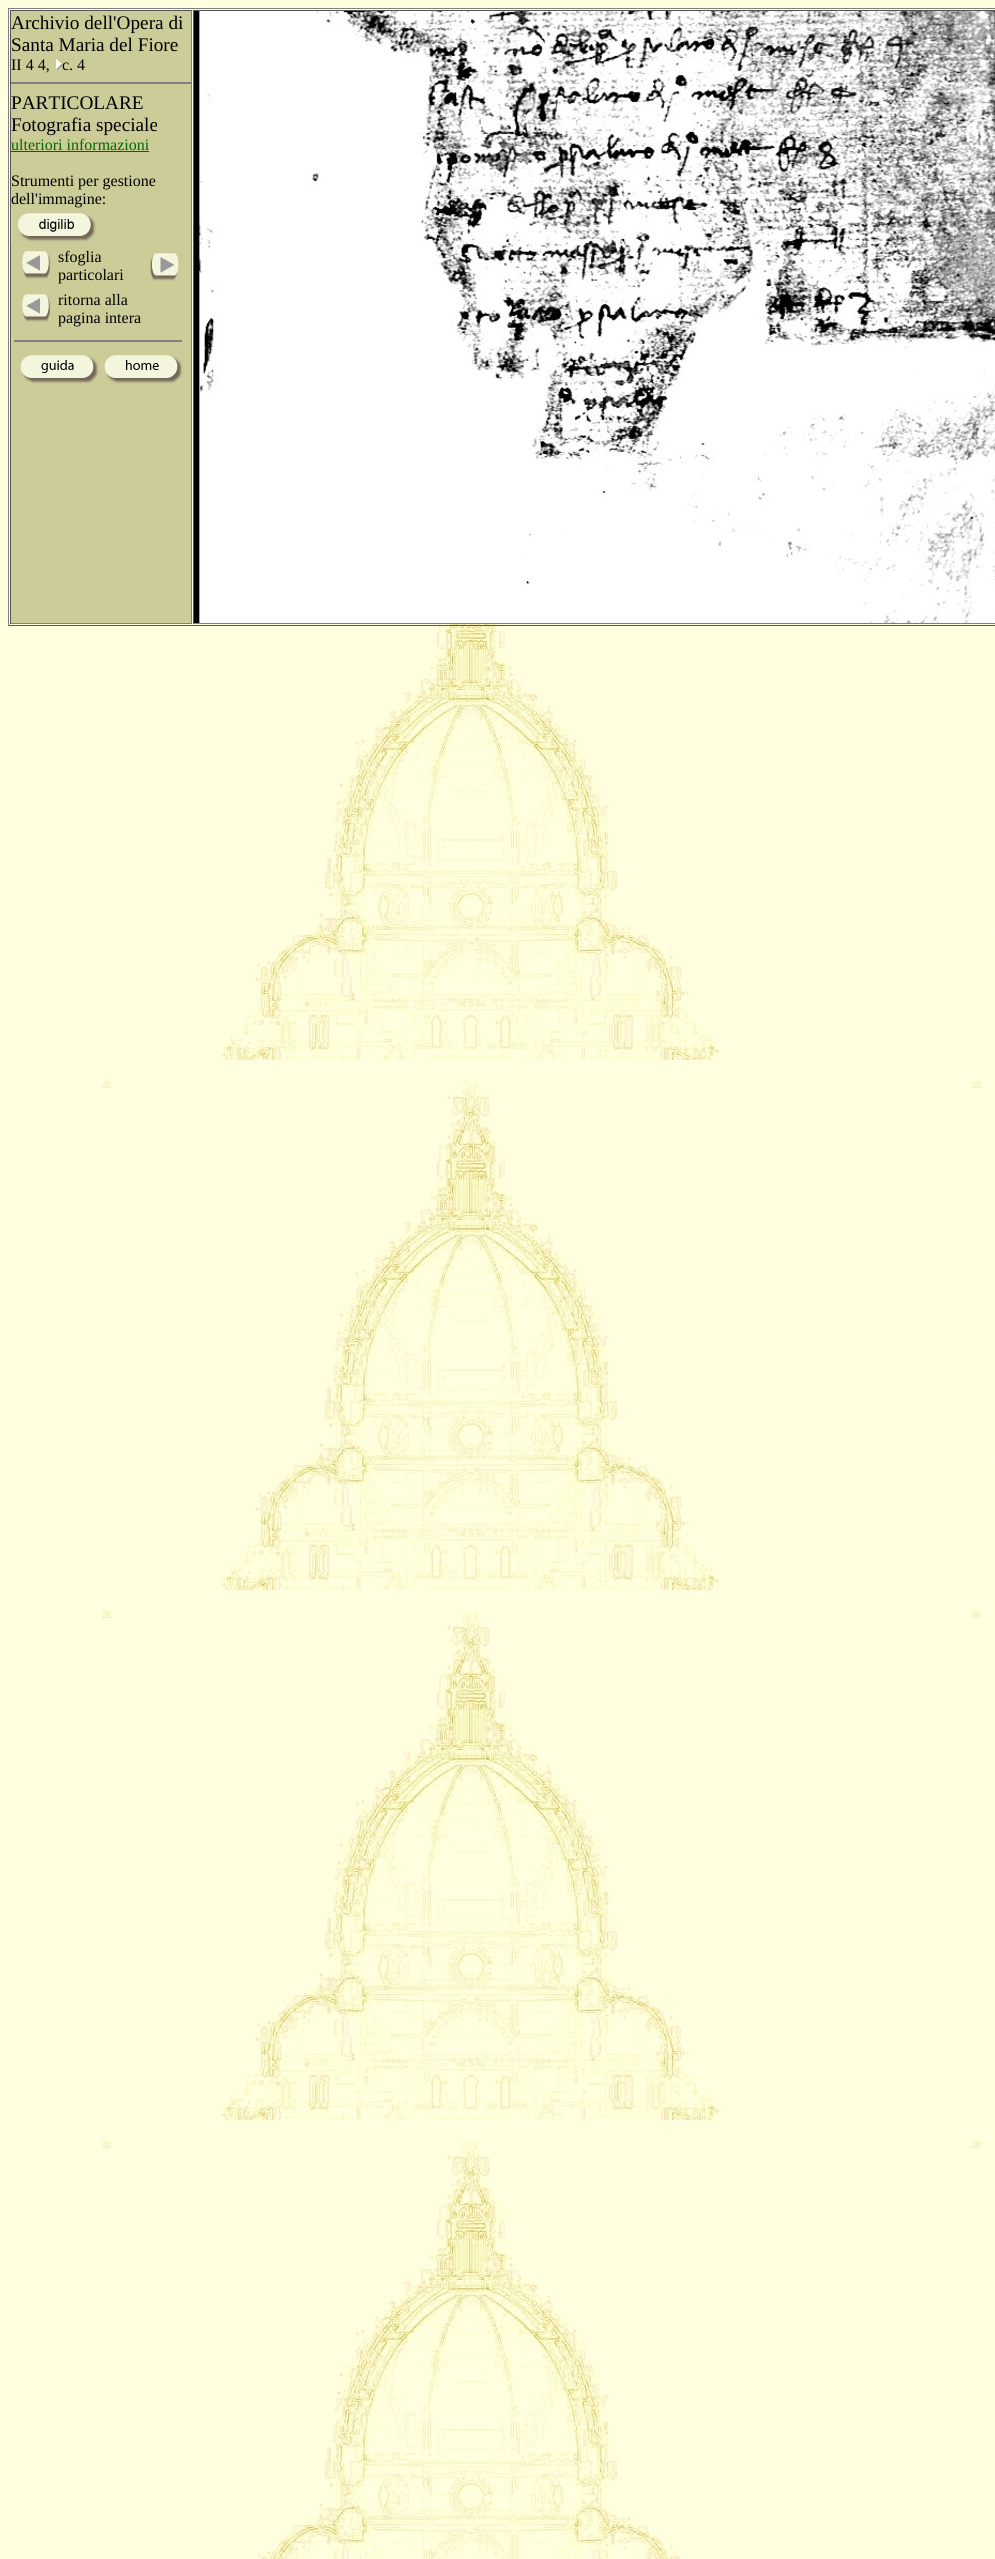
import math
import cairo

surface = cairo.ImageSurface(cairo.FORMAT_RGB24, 995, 2559)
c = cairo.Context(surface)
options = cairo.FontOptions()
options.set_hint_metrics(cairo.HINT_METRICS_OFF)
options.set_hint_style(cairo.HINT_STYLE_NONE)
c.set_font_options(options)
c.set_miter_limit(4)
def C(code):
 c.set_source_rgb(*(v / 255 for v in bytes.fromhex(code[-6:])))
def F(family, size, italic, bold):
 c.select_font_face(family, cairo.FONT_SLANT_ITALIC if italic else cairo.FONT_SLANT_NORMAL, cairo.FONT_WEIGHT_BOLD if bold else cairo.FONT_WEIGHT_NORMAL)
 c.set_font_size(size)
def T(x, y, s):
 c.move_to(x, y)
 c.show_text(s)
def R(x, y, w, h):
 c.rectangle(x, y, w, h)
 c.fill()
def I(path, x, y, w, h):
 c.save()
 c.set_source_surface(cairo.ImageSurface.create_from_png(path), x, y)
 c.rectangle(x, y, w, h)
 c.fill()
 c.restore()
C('ffffff')
c.paint()
I('1.png',0,0,995,2559)
C('808080')
R(8,8,987,1)
C('555555')
R(8,625,987,1)
C('808080')
R(8,8,1,618)
C('cccc99')
R(11,11,180,612)
C('555555')
R(10,10,182,1)
C('808080')
R(191,10,1,614)
R(10,623,182,1)
C('555555')
R(10,10,1,614)
F('Liberation Serif',19.25,0,0)
C('000000')
T(11,29,'Archivio dell\'Opera di')
T(11,51,'Santa Maria del Fiore')
F('Liberation Serif',16,0,0)
T(11,70,'II 4 4,')
I('2.png',56,59,6,11)
T(62,70,'c. 4')
C('808080')
R(11,82,180,2)
F('Liberation Serif',19.25,0,0)
C('000000')
T(11,109,'PARTICOLARE')
T(11,131,'Fotografia speciale')
F('Liberation Serif',16,0,0)
C('006600')
T(11,150,'ulteriori informazioni')
R(11,151,138,1)
C('000000')
T(11,186,'Strumenti per gestione')
T(11,204,'dell\'immagine:')
I('3.png',11,208,85,35)
I('4.png',22,251,29,28)
T(58,262,'sfoglia')
T(58,280,'particolari')
I('5.png',150,253,29,28)
I('4.png',22,294,29,28)
T(58,305,'ritorna alla')
T(58,323,'pagina intera')
C('808080')
R(14,340,168,2)
I('6.png',20,355,79,29)
I('7.png',104,355,78,29)
C('555555')
R(193,10,802,1)
C('808080')
R(193,623,802,1)
C('555555')
R(193,10,1,614)
I('8.png',194,11,801,612)
surface.write_to_png('o.png')
